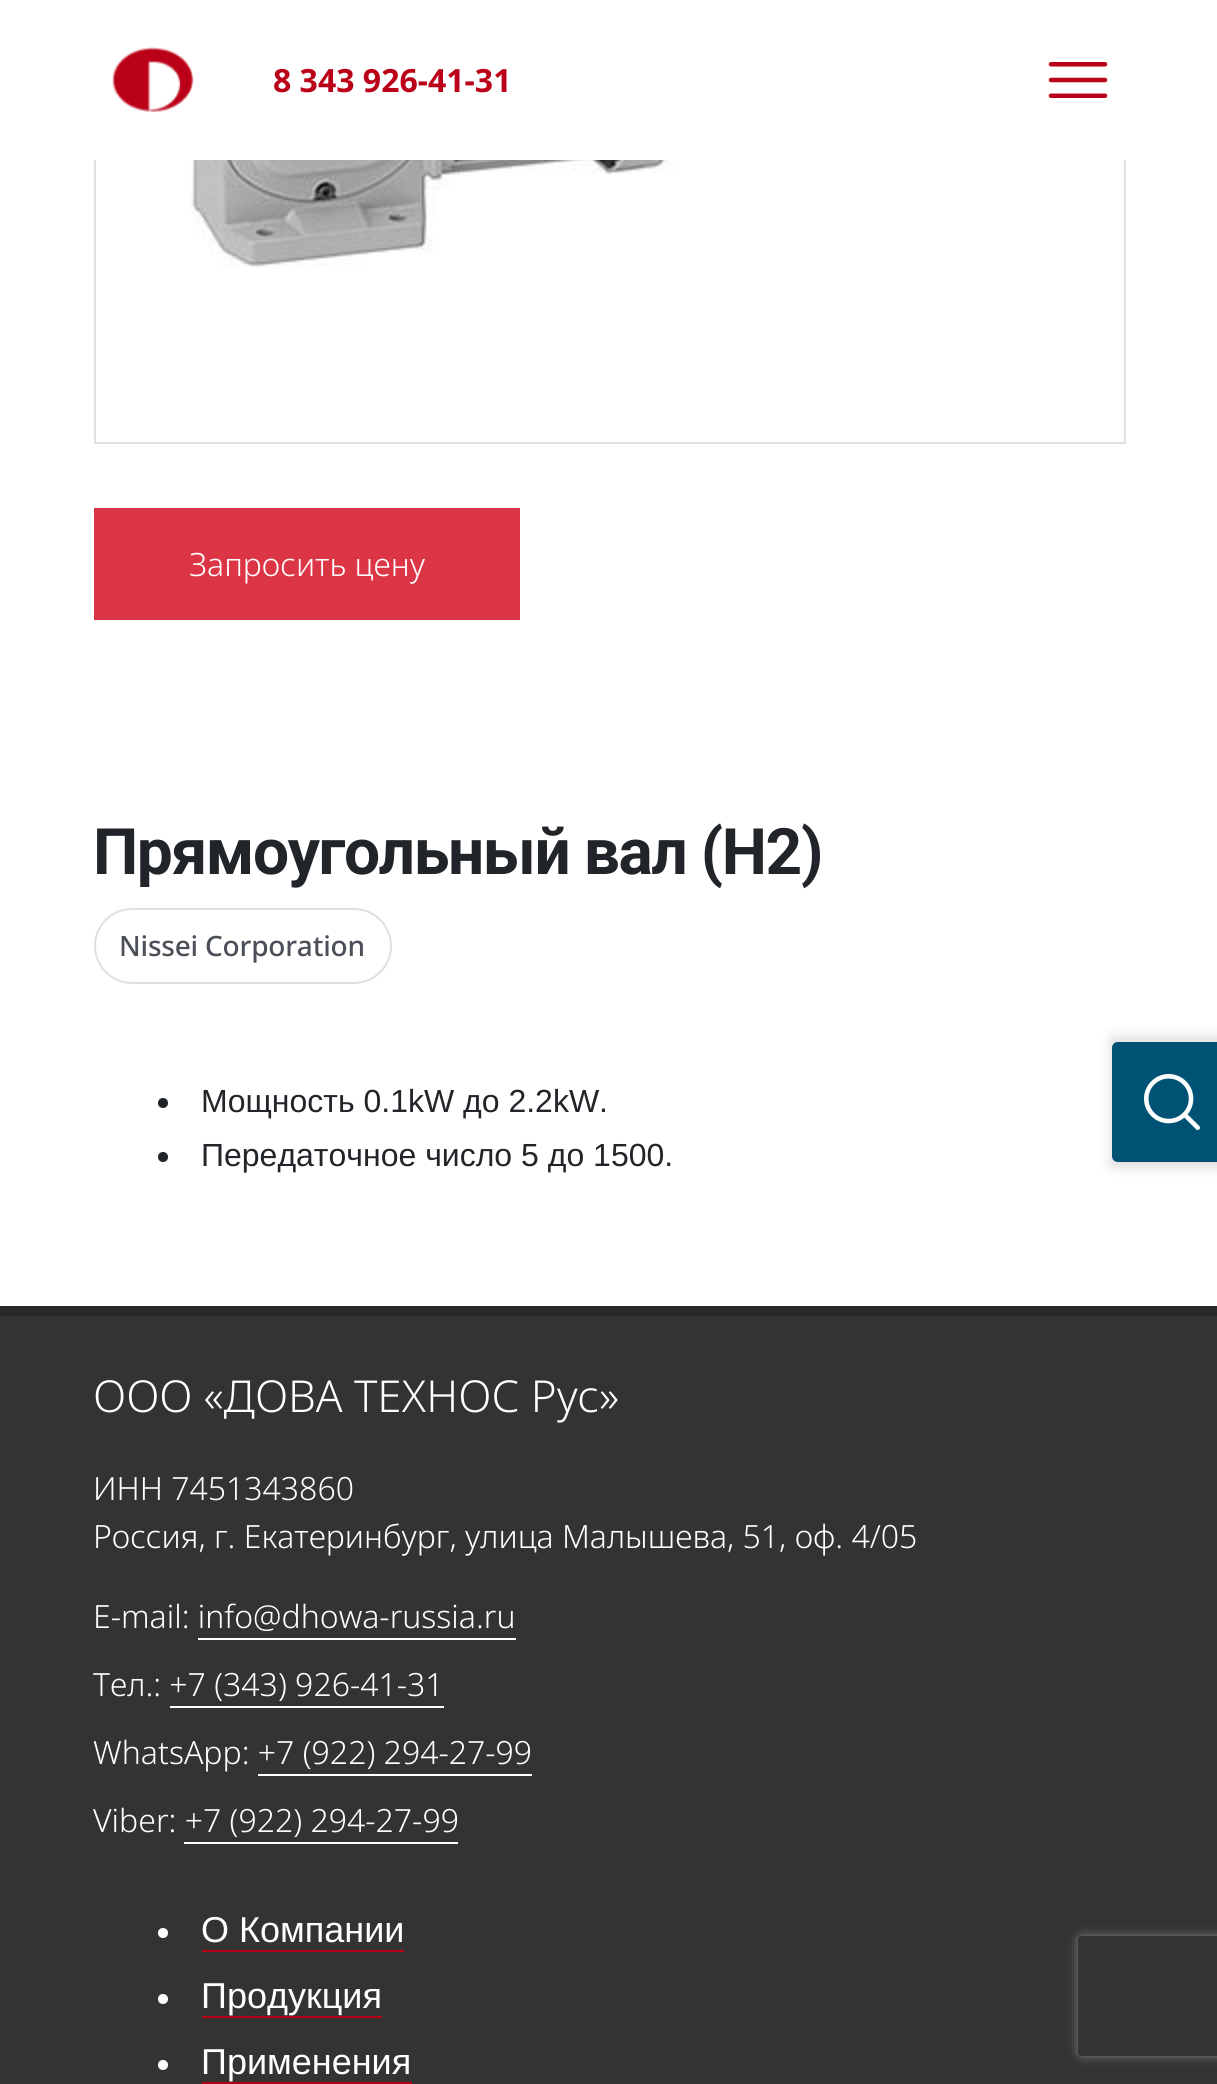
import math
import cairo

surface = cairo.ImageSurface(cairo.FORMAT_RGB24, 1217, 2084)
c = cairo.Context(surface)
options = cairo.FontOptions()
options.set_hint_metrics(cairo.HINT_METRICS_OFF)
options.set_hint_style(cairo.HINT_STYLE_NONE)
c.set_font_options(options)
c.set_miter_limit(4)
def C(code):
 c.set_source_rgb(*(v / 255 for v in bytes.fromhex(code[-6:])))
def F(family, size, italic, bold):
 c.select_font_face(family, cairo.FONT_SLANT_ITALIC if italic else cairo.FONT_SLANT_NORMAL, cairo.FONT_WEIGHT_BOLD if bold else cairo.FONT_WEIGHT_NORMAL)
 c.set_font_size(size)
def T(x, y, s):
 c.move_to(x, y)
 c.show_text(s)
def L(x, y, s, letter, word):
 c.move_to(x, y)
 for ch in s:
  c.show_text(ch)
  c.rel_move_to(letter + word * (ch == ' '), 0)
def R(x, y, w, h):
 c.rectangle(x, y, w, h)
 c.fill()
def Q(x, y, w, h, r):
 c.new_sub_path()
 for i, (u, v) in enumerate([(x + w - r, y + h - r), (x + r, y + h - r), (x + r, y + r), (x + w - r, y + r)]):
  c.arc(u, v, r, i * math.pi / 2, (i + 1) * math.pi / 2)
 c.close_path()
def S(x, y, w, h, r, blur, alpha):
 c.push_group_with_content(cairo.CONTENT_ALPHA)
 c.set_operator(cairo.OPERATOR_SOURCE)
 for i in range(15, -16, -2):
  e = blur * i / 6
  if min(w, h) + 2 * e > 0:
   c.set_source_rgba(0, 0, 0, alpha * math.erfc((i - 1) / 8.5) / 2)
   Q(x - e, y - e, w + 2 * e, h + 2 * e, max(0, min(r + e + blur * .6, min(w, h) / 2 + e)))
   c.fill()
 c.mask(c.pop_group())
def I(path, x, y, w, h):
 c.save()
 c.set_source_surface(cairo.ImageSurface.create_from_png(path), x, y)
 c.rectangle(x, y, w, h)
 c.fill()
 c.restore()
C('ffffff')
c.paint()
c.rectangle(95,-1,1030,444)
C('dee2e6')
c.stroke()
C('ffffff')
R(94,0,1032,160)
I('1.png',112,47,82,65)
F('Noto Sans',32,0,1)
C('bb0118')
T(273,92,'8 343 926-41-31')
I('2.png',1048,62,60,36)
I('3.png',191,160,511,108)
C('dc3545')
R(94,508,426,112)
F('Noto Sans Light',32,0,0)
C('ffffff')
T(189,576,'Запросить цену')
F('Roboto',64,0,1)
C('212529')
L(93,874,'Прямоугольный вал (H2)',-1.4,0)
Q(95,909,296,74,37)
C('dee0e3')
c.stroke()
F('Noto Sans Medium',28,0,0)
C('4b4f58')
L(119,956,'Nissei Corporation',-.2,0)
C('212529')
c.new_path()
c.arc(163,1103,5,0,2 * math.pi)
c.fill()
F('Liberation Sans',32,0,0)
T(201,1112,'Мощность 0.1kW до 2.2kW.')
c.new_path()
c.arc(163,1157,5,0,2 * math.pi)
c.fill()
T(201,1166,'Передаточное число 5 до 1500.')
C('000000')
S(1112,1038,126,128,0,7,.15)
C('005275')
c.new_path()
c.move_to(1118,1042)
c.line_to(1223,1042)
c.line_to(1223,1162)
c.line_to(1118,1162)
c.curve_to(1114.5,1162,1112,1159.5,1112,1156)
c.line_to(1112,1048)
c.curve_to(1112,1044.5,1114.5,1042,1118,1042)
c.close_path()
c.fill()
I('4.png',1144,1074,56,56)
C('333333')
R(0,1316,1217,768)
C('282828')
R(0,1306,1217,10)
F('Noto Sans Light',44,0,0)
C('ffffff')
T(93,1412,'ООО «ДОВА ТЕХНОС Рус»')
F('Noto Sans Light',32,0,0)
T(93,1500,'ИНН 7451343860')
T(93,1548,'Россия, г. Екатеринбург, улица Малышева, 51, оф. 4/05')
T(93,1628,'E-mail: info@dhowa-russia.ru')
R(198,1638,318,2)
T(93,1696,'Тел.: +7 (343) 926-41-31')
R(170,1706,274,2)
T(93,1764,'WhatsApp: +7 (922) 294-27-99')
R(258,1774,274,2)
T(93,1832,'Viber: +7 (922) 294-27-99')
R(184,1842,274,2)
c.new_path()
c.arc(163,1933,5,0,2 * math.pi)
c.fill()
F('Liberation Sans',36,0,0)
T(201,1942,'О Компании')
C('bb0118')
R(202,1950,202,2)
C('ffffff')
c.new_path()
c.arc(163,1999,5,0,2 * math.pi)
c.fill()
T(201,2008,'Продукция')
C('bb0118')
R(202,2016,180,2)
C('ffffff')
c.new_path()
c.arc(163,2065,5,0,2 * math.pi)
c.fill()
T(201,2074,'Применения')
C('bb0118')
R(202,2082,210,2)
c.save()
c.set_fill_rule(cairo.FILL_RULE_EVEN_ODD)
c.new_path()
c.move_to(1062,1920)
c.line_to(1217,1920)
c.line_to(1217,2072)
c.line_to(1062,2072)
c.close_path()
c.move_to(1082,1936)
c.line_to(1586,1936)
c.curve_to(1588,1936,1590,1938,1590,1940)
c.line_to(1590,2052)
c.curve_to(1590,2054,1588,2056,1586,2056)
c.line_to(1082,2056)
c.curve_to(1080,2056,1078,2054,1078,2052)
c.line_to(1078,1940)
c.curve_to(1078,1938,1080,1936,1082,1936)
c.close_path()
c.clip()
C('808080')
S(1078,1936,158,120,4,5,1)
c.restore()
surface.write_to_png('o.png')
